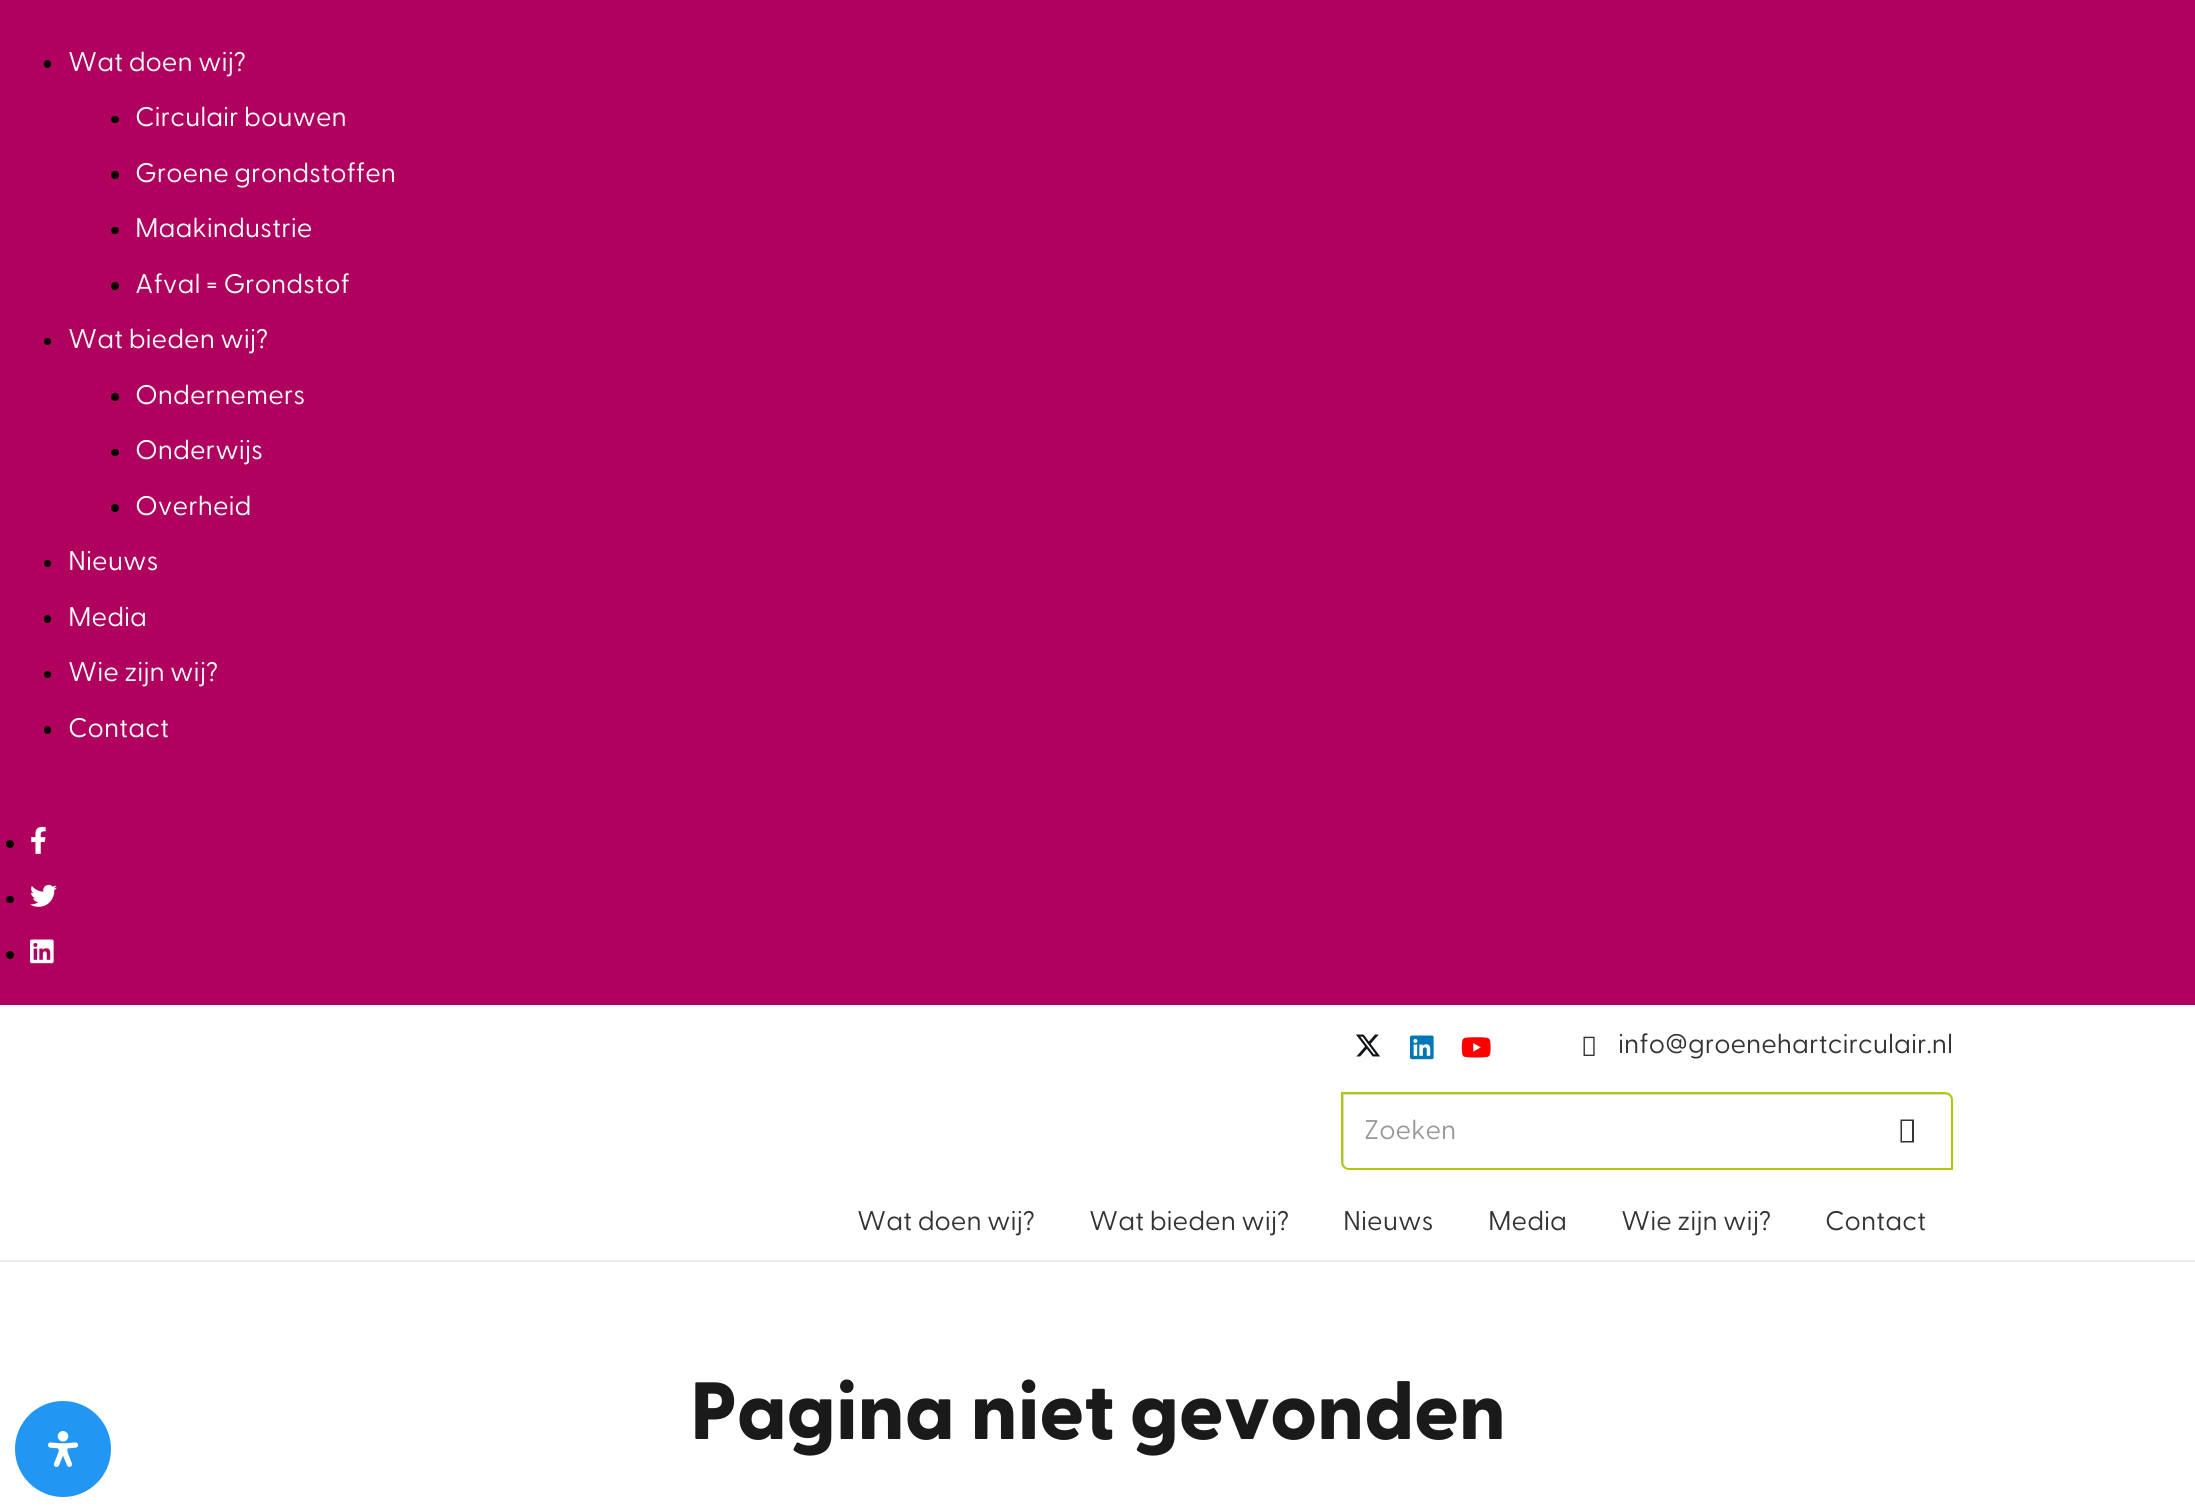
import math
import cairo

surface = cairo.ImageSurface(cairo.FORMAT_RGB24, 2195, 1512)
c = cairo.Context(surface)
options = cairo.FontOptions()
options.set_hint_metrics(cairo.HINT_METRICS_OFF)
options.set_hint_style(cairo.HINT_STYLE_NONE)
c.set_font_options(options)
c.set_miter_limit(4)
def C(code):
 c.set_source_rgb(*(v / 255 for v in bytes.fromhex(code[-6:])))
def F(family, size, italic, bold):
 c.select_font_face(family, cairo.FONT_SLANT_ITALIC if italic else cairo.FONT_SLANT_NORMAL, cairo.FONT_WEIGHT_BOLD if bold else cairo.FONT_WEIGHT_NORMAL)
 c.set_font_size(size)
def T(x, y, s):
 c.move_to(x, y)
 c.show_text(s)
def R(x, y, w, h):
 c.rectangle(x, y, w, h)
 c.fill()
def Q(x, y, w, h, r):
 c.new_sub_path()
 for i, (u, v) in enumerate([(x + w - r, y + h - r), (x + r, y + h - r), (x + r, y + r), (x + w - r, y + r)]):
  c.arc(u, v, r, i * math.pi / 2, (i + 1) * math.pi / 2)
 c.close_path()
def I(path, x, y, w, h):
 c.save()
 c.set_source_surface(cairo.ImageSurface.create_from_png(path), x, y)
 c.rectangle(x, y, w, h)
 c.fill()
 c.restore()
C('b0015e')
c.paint()
C('000000')
Q(44,60,7,8,3.5)
c.fill()
F('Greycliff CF',27,0,0)
C('ffffff')
T(68,71,'Wat doen wij?')
C('000000')
Q(111,116,8,7,3.5)
c.fill()
C('ffffff')
T(135,126,'Circulair bouwen')
C('000000')
c.new_path()
c.arc(115,175,4,0,2 * math.pi)
c.fill()
C('ffffff')
T(135,182,'Groene grondstoffen')
C('000000')
Q(111,227,8,7,3.5)
c.fill()
C('ffffff')
T(135,237,'Maakindustrie')
C('000000')
c.new_path()
c.arc(115,286,4,0,2 * math.pi)
c.fill()
C('ffffff')
T(135,293,'Afval = Grondstof')
C('000000')
c.new_path()
c.arc(47.5,341.5,3.5,0,2 * math.pi)
c.fill()
C('ffffff')
T(68,348,'Wat bieden wij?')
C('000000')
c.new_path()
c.arc(115,397,4,0,2 * math.pi)
c.fill()
C('ffffff')
T(135,404,'Ondernemers')
C('000000')
Q(111,449,8,7,3.5)
c.fill()
C('ffffff')
T(135,459,'Onderwijs')
C('000000')
c.new_path()
c.arc(115,508,4,0,2 * math.pi)
c.fill()
C('ffffff')
T(135,515,'Overheid')
C('000000')
c.new_path()
c.arc(47.5,563.5,3.5,0,2 * math.pi)
c.fill()
C('ffffff')
T(68,570,'Nieuws')
C('000000')
Q(44,615,7,8,3.5)
c.fill()
C('ffffff')
T(68,626,'Media')
C('000000')
c.new_path()
c.arc(47.5,674.5,3.5,0,2 * math.pi)
c.fill()
C('ffffff')
T(68,681,'Wie zijn wij?')
C('000000')
Q(44,726,7,8,3.5)
c.fill()
C('ffffff')
T(68,737,'Contact')
C('000000')
c.new_path()
c.arc(10,844,4,0,2 * math.pi)
c.fill()
I('1.png',31,826,15,28)
Q(6,896,8,7,3.5)
c.fill()
I('2.png',30,884,27,23)
c.arc(10,955,4,0,2 * math.pi)
c.fill()
I('3.png',30,939,24,25)
C('ffffff')
R(0,1005,2195,507)
C('2196f3')
c.arc(63,1449,48,0,2 * math.pi)
c.fill()
I('4.png',47,1431,32,36)
I('5.png',1356,1034,24,23)
I('6.png',1410,1035,24,25)
I('7.png',1461,1037,30,21)
I('8.png',1583,1036,12,20)
C('333333')
T(1618,1053,'info@groenehartcirculair.nl')
C('d9d9d9')
c.new_path()
c.move_to(1344,1095)
c.line_to(1946,1095)
c.curve_to(1948,1095,1950,1096,1951,1098)
c.curve_to(1951,1095,1948,1094,1946,1094)
c.line_to(1343,1094)
c.line_to(1343,1163)
c.curve_to(1343,1165,1344,1168,1347,1168)
c.curve_to(1345,1167,1344,1165,1344,1163)
c.close_path()
c.fill()
c.new_path()
c.move_to(1342,1093)
c.line_to(1945,1093)
c.curve_to(1949,1093,1952,1096,1952,1100)
c.line_to(1952,1169)
c.line_to(1349,1169)
c.curve_to(1345,1169,1342,1166,1342,1162)
c.close_path()
C('afca05')
c.stroke()
C('999999')
T(1364,1139,'Zoeken')
C('333333')
c.new_path()
c.move_to(1900.5,1142.5)
c.line_to(1900.5,1119.5)
c.line_to(1914,1119.5)
c.line_to(1914,1142.5)
c.close_path()
c.move_to(1902,1141)
c.line_to(1912,1141)
c.line_to(1912,1121)
c.line_to(1902,1121)
c.close_path()
c.fill()
C('ebebeb')
R(0,1260,2195,2)
C('333333')
T(857,1230,'Wat doen wij?')
T(1089,1230,'Wat bieden wij?')
T(1343,1230,'Nieuws')
T(1488,1230,'Media')
T(1621,1230,'Wie zijn wij?')
T(1825,1230,'Contact')
F('Greycliff CF ExtraBold',81,0,0)
C('1a1a1a')
T(690,1439,'Pagina niet gevonden')
surface.write_to_png('o.png')
